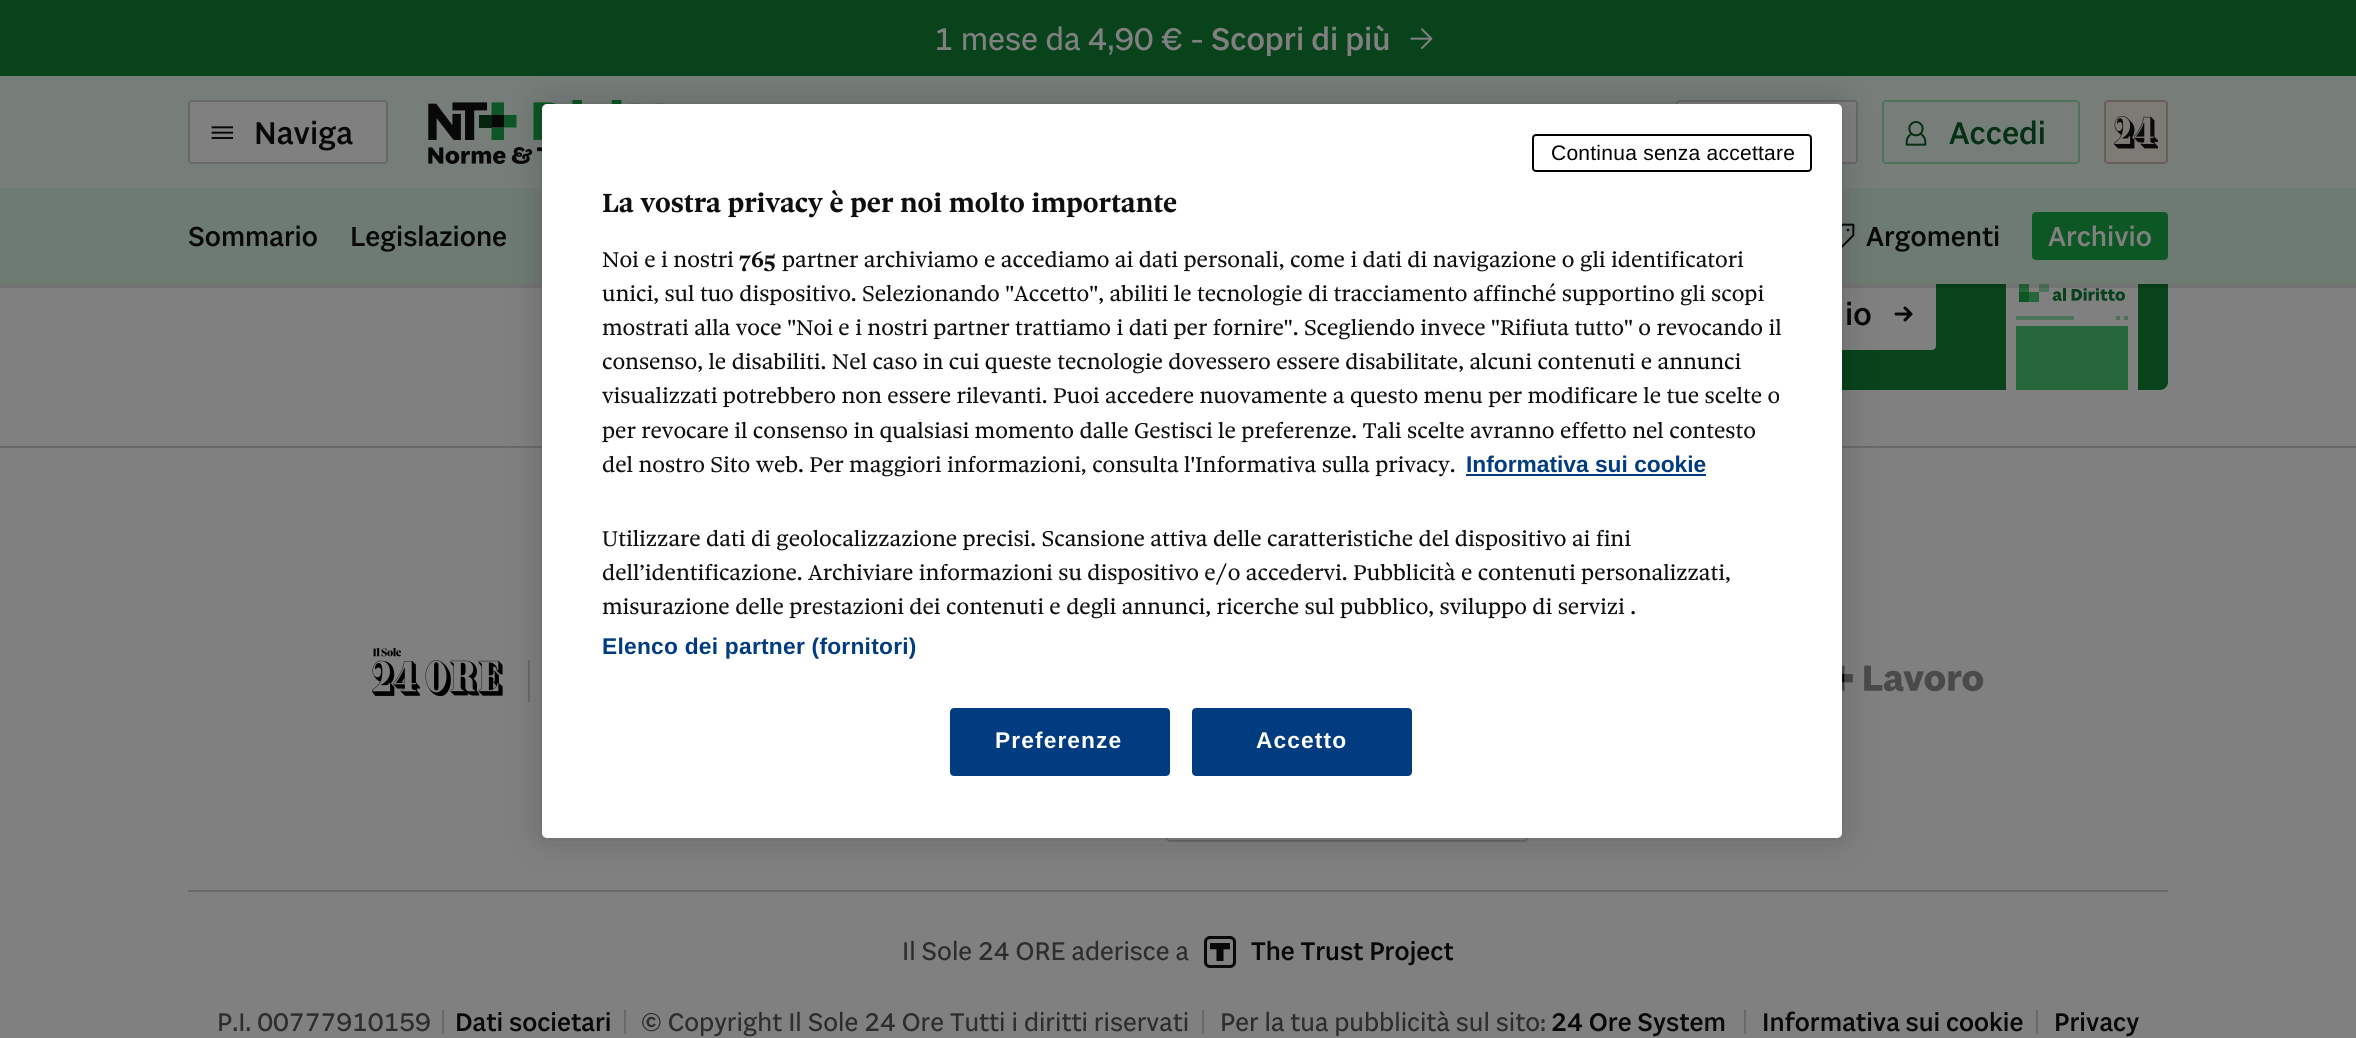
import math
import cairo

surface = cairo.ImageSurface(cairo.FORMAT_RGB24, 2356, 1038)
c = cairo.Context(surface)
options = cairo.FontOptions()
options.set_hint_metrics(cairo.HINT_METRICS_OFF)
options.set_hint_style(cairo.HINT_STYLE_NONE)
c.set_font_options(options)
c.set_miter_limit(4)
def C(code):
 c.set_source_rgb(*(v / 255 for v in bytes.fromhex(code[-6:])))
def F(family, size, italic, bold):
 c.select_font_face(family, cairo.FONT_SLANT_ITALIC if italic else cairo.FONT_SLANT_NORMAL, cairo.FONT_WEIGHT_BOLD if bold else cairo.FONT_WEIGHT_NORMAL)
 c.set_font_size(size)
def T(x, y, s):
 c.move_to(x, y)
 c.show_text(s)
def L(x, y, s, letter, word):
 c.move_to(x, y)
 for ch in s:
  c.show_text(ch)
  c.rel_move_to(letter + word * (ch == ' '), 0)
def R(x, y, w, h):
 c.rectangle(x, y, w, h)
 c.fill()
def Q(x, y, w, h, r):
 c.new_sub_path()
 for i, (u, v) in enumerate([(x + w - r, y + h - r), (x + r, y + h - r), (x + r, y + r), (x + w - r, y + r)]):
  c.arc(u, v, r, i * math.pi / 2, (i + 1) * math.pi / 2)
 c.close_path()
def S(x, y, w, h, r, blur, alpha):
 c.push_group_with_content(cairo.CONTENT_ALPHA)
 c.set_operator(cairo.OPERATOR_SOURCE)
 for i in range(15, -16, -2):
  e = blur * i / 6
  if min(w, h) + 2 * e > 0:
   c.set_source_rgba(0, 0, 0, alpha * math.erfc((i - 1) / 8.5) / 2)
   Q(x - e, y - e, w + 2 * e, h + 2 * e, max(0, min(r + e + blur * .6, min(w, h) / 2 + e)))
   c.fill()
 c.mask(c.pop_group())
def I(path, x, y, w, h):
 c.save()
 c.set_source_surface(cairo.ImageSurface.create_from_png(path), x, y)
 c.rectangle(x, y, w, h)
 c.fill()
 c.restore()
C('808080')
c.paint()
C('08431c')
Q(1548,52,620,338,8)
c.fill()
C('808080')
Q(1580,278,356,72,4)
c.fill()
I('8.png',2006,284,132,106)
c.set_source_rgba(0,0,0,0.1)
R(0,284,2356,4)
C('08431c')
R(0,0,2356,76)
F('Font',32,0,0)
C('808080')
T(934,50,'1 mese da 4,90 € -')
F('Font Medium',32,0,0)
T(1211,50,'Scopri di più')
I('1.png',1410,28,23,21)
C('777e7a')
R(0,76,2356,112)
C('808080')
Q(189,101,198,62,3)
c.fill_preserve()
C('696969')
c.stroke()
I('2.png',211,126,22,13)
C('080808')
T(254,144,'Naviga')
I('3.png',428,100,236,64)
C('808080')
Q(1677,101,180,62,3)
c.fill_preserve()
C('696969')
c.stroke()
Q(1883,101,196,62,3)
C('4d735a')
c.stroke()
I('4.png',1905,121,22,25)
C('063015')
T(1949,144,'Accedi')
C('7e7b77')
Q(2105,101,62,62,3)
c.fill_preserve()
C('6a5f56')
c.stroke()
I('5.png',2114,116,44,33)
C('6e7b73')
R(0,188,2356,96)
F('Font Medium',28,0,0)
C('080808')
T(188,246,'Sommario')
T(350,246,'Legislazione')
I('6.png',1842,223,13,25)
T(1866,246,'Argomenti')
C('0d5725')
Q(2032,212,136,48,4)
c.fill()
C('808080')
T(2048,246,'Archivio')
F('Font Medium',32,0,0)
C('080808')
T(1845,325,'io')
I('7.png',1894,306,19,16)
C('696969')
R(0,446,2356,2)
I('9.png',372,648,131,48)
R(528,660,2,42)
I('10.png',1842,665,142,27)
Q(1167,767,360,74,3)
c.stroke()
R(188,890,1980,2)
F('Font',26,0,0)
C('2d2d2d')
T(902,960,'Il Sole 24 ORE aderisce a')
I('11.png',1204,936,32,32)
F('Font Medium',26,0,0)
C('080808')
T(1251,960,'The Trust Project')
F('Font',26,0,0)
C('2d2d2d')
T(217,1031,'P.I. 00777910159')
C('696969')
R(442,1010,2,24)
F('Font Medium',26,0,0)
C('080808')
T(455,1031,'Dati societari')
C('696969')
R(624,1010,2,24)
F('Font',26,0,0)
C('2d2d2d')
T(641,1031,'© Copyright Il Sole 24 Ore Tutti i diritti riservati')
C('696969')
R(1202,1010,2,24)
C('2d2d2d')
T(1220,1031,'Per la tua pubblicità sul sito:')
F('Font Medium',26,0,0)
C('080808')
T(1551,1031,'24 Ore System')
C('696969')
R(1744,1010,2,24)
C('080808')
T(1762,1031,'Informativa sui cookie')
C('696969')
R(2036,1010,2,24)
C('080808')
T(2054,1031,'Privacy')
C('000000')
S(542,104,1300,734,5,18,.2)
C('ffffff')
Q(542,104,1300,734,5)
c.fill()
Q(1533,135,278,36,3)
C('000000')
c.stroke()
F('Liberation Sans',21,0,0)
L(1551,160,'Continua senza accettare',.25,0)
F('Font',28,0,1)
C('0f0f0f')
T(602,212,'La vostra privacy è per noi molto importante')
F('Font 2',22.75,0,0)
T(602,267,'Noi e i nostri')
F('Font',22.75,0,1)
T(739,267,'765')
F('Font 2',22.75,0,0)
T(782,267,'partner archiviamo e accediamo ai dati personali, come i dati di navigazione o gli identificatori')
T(602,301,'unici, sul tuo dispositivo. Selezionando "Accetto", abiliti le tecnologie di tracciamento affinché supportino gli scopi')
T(602,335,'mostrati alla voce "Noi e i nostri partner trattiamo i dati per fornire". Scegliendo invece "Rifiuta tutto" o revocando il')
T(602,369,'consenso, le disabiliti. Nel caso in cui queste tecnologie dovessero essere disabilitate, alcuni contenuti e annunci')
T(602,403,'visualizzati potrebbero non essere rilevanti. Puoi accedere nuovamente a questo menu per modificare le tue scelte o')
T(602,438,'per revocare il consenso in qualsiasi momento dalle Gestisci le preferenze. Tali scelte avranno effetto nel contesto')
T(602,472,'del nostro Sito web. Per maggiori informazioni, consulta l\'Informativa sulla privacy.')
F('Liberation Sans',22.75,0,1)
C('003c7f')
T(1466,472,'Informativa sui cookie')
R(1466,474,240,2)
F('Font 2',22.75,0,0)
C('0f0f0f')
T(602,546,'Utilizzare dati di geolocalizzazione precisi. Scansione attiva delle caratteristiche del dispositivo ai fini')
T(602,580,'dell’identificazione. Archiviare informazioni su dispositivo e/o accedervi. Pubblicità e contenuti personalizzati,')
T(602,614,'misurazione delle prestazioni dei contenuti e degli annunci, ricerche sul pubblico, sviluppo di servizi .')
F('Liberation Sans',22.75,0,1)
C('003c7f')
L(602,654,'Elenco dei partner (fornitori)',.25,0)
Q(951,709,218,66,3)
c.fill_preserve()
c.stroke()
C('ffffff')
L(995,748,'Preferenze',1.1,0)
C('003c7f')
Q(1193,709,218,66,3)
c.fill_preserve()
c.stroke()
C('ffffff')
L(1256,748,'Accetto',1.1,0)
surface.write_to_png('o.png')
